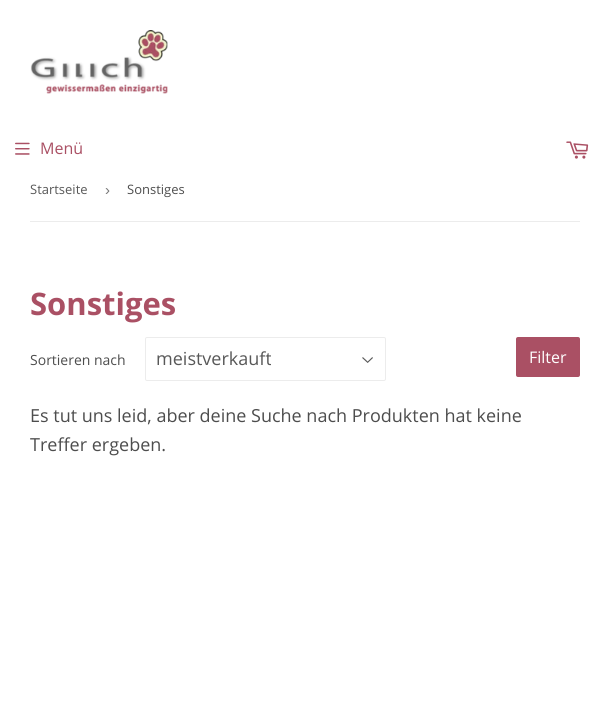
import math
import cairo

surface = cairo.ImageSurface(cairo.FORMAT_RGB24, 610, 717)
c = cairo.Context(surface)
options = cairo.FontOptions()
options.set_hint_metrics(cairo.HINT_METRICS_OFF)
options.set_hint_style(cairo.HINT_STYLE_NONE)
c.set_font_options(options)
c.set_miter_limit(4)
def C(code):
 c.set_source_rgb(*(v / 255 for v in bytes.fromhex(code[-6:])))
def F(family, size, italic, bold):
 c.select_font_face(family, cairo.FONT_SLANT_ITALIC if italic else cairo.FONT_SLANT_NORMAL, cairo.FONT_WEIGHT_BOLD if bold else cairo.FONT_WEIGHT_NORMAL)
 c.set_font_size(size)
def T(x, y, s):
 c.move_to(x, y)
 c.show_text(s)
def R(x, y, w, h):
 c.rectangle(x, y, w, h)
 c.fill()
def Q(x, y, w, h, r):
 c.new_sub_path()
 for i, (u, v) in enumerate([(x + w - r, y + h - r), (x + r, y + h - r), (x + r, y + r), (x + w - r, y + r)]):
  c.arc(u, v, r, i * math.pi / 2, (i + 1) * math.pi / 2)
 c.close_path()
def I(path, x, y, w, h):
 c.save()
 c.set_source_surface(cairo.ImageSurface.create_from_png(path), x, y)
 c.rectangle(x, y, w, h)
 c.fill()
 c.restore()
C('ffffff')
c.paint()
I('1.png',30,30,138,64)
I('2.png',15,142,15,13)
F('Open Sans',16,0,0)
C('aa5064')
T(40,154,'Menü')
I('3.png',566,141,23,18)
C('ececec')
R(30,221,550,1)
F('Open Sans',13,0,0)
C('585858')
T(30,194,'Startseite')
F('Liberation Sans',15,0,0)
C('767676')
T(105,195,'›')
F('Open Sans',13,0,0)
C('4d4d4d')
T(127,194,'Sonstiges')
F('Open Sans',31,0,1)
C('aa5064')
T(30,315,'Sonstiges')
F('Open Sans',14,0,0)
C('4d4d4d')
T(30,365,'Sortieren nach')
I('4.png',362,357,11,6)
Q(145.5,337.5,240,43,1.5)
C('ececec')
c.set_line_width(1)
c.stroke()
F('Open Sans',18,0,0)
C('585858')
T(156,365,'meistverkauft')
C('aa5064')
Q(516,337,64,40,2)
c.fill()
F('Open Sans',16,0,0)
C('ffffff')
T(529,363,'Filter')
F('Open Sans',18,0,0)
C('4d4d4d')
T(30,422,'Es tut uns leid, aber deine Suche nach Produkten hat keine')
T(30,451,'Treffer ergeben.')
surface.write_to_png('o.png')
